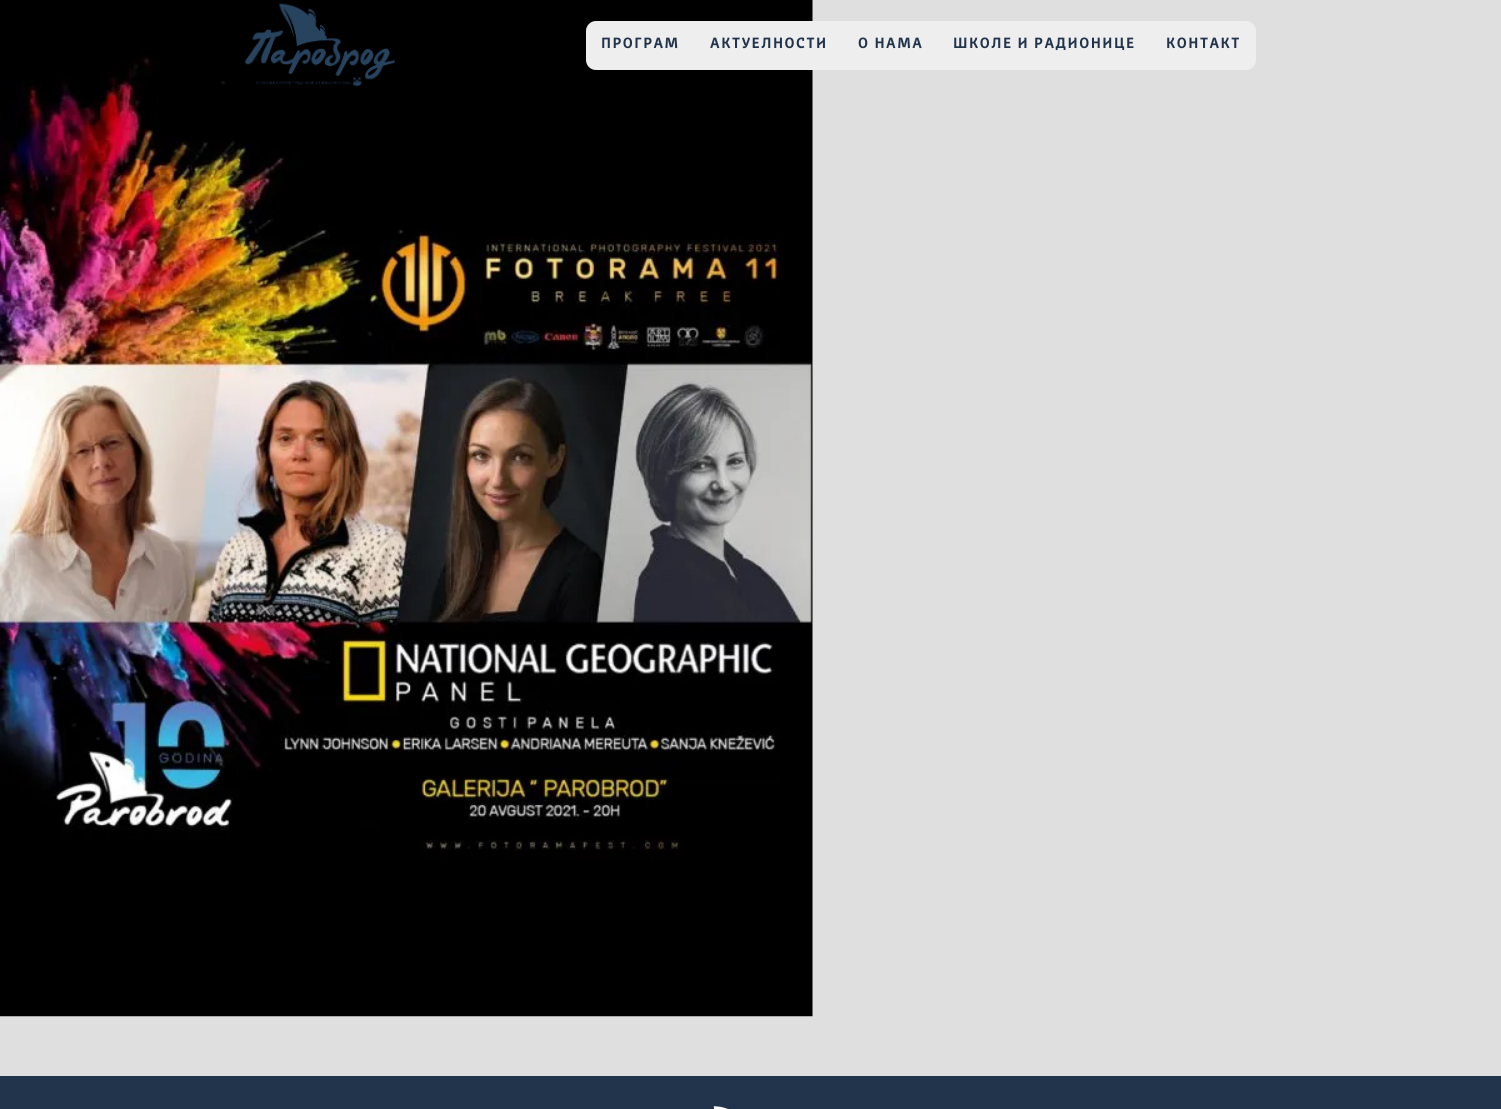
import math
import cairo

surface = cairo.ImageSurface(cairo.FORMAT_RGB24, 1501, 1109)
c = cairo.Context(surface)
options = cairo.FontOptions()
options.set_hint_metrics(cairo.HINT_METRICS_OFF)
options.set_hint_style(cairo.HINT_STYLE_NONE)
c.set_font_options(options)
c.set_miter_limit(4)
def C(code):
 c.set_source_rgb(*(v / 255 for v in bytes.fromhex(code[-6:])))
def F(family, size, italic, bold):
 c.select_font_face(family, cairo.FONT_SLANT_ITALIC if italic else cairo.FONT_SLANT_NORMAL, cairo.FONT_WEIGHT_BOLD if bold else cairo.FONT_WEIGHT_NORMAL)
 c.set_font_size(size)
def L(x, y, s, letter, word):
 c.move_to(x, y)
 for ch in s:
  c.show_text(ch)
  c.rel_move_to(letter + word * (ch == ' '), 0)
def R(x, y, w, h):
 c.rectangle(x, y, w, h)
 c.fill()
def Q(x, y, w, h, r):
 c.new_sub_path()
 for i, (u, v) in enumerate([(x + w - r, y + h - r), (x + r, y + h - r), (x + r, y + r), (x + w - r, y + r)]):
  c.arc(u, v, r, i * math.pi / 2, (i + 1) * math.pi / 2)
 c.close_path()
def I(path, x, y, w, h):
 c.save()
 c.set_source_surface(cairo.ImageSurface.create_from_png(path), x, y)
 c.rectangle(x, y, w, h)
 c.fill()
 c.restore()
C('dfdfdf')
c.paint()
I('1.png',0,0,813,1017)
I('2.png',245,3,150,84)
C('eeeeee')
Q(586,21,670,49,10)
c.fill()
F('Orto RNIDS',15,0,1)
C('21344b')
L(601,48,'ПРОГРАМ',1.5,0)
L(710,48,'АКТУЕЛНОСТИ',1.5,0)
L(858,48,'О НАМА',1.5,0)
L(953,48,'ШКОЛЕ И РАДИОНИЦЕ',1.5,0)
L(1166,48,'КОНТАКТ',1.5,0)
R(0,1076,1501,33)
I('3.png',713,1106,16,3)
surface.write_to_png('o.png')
